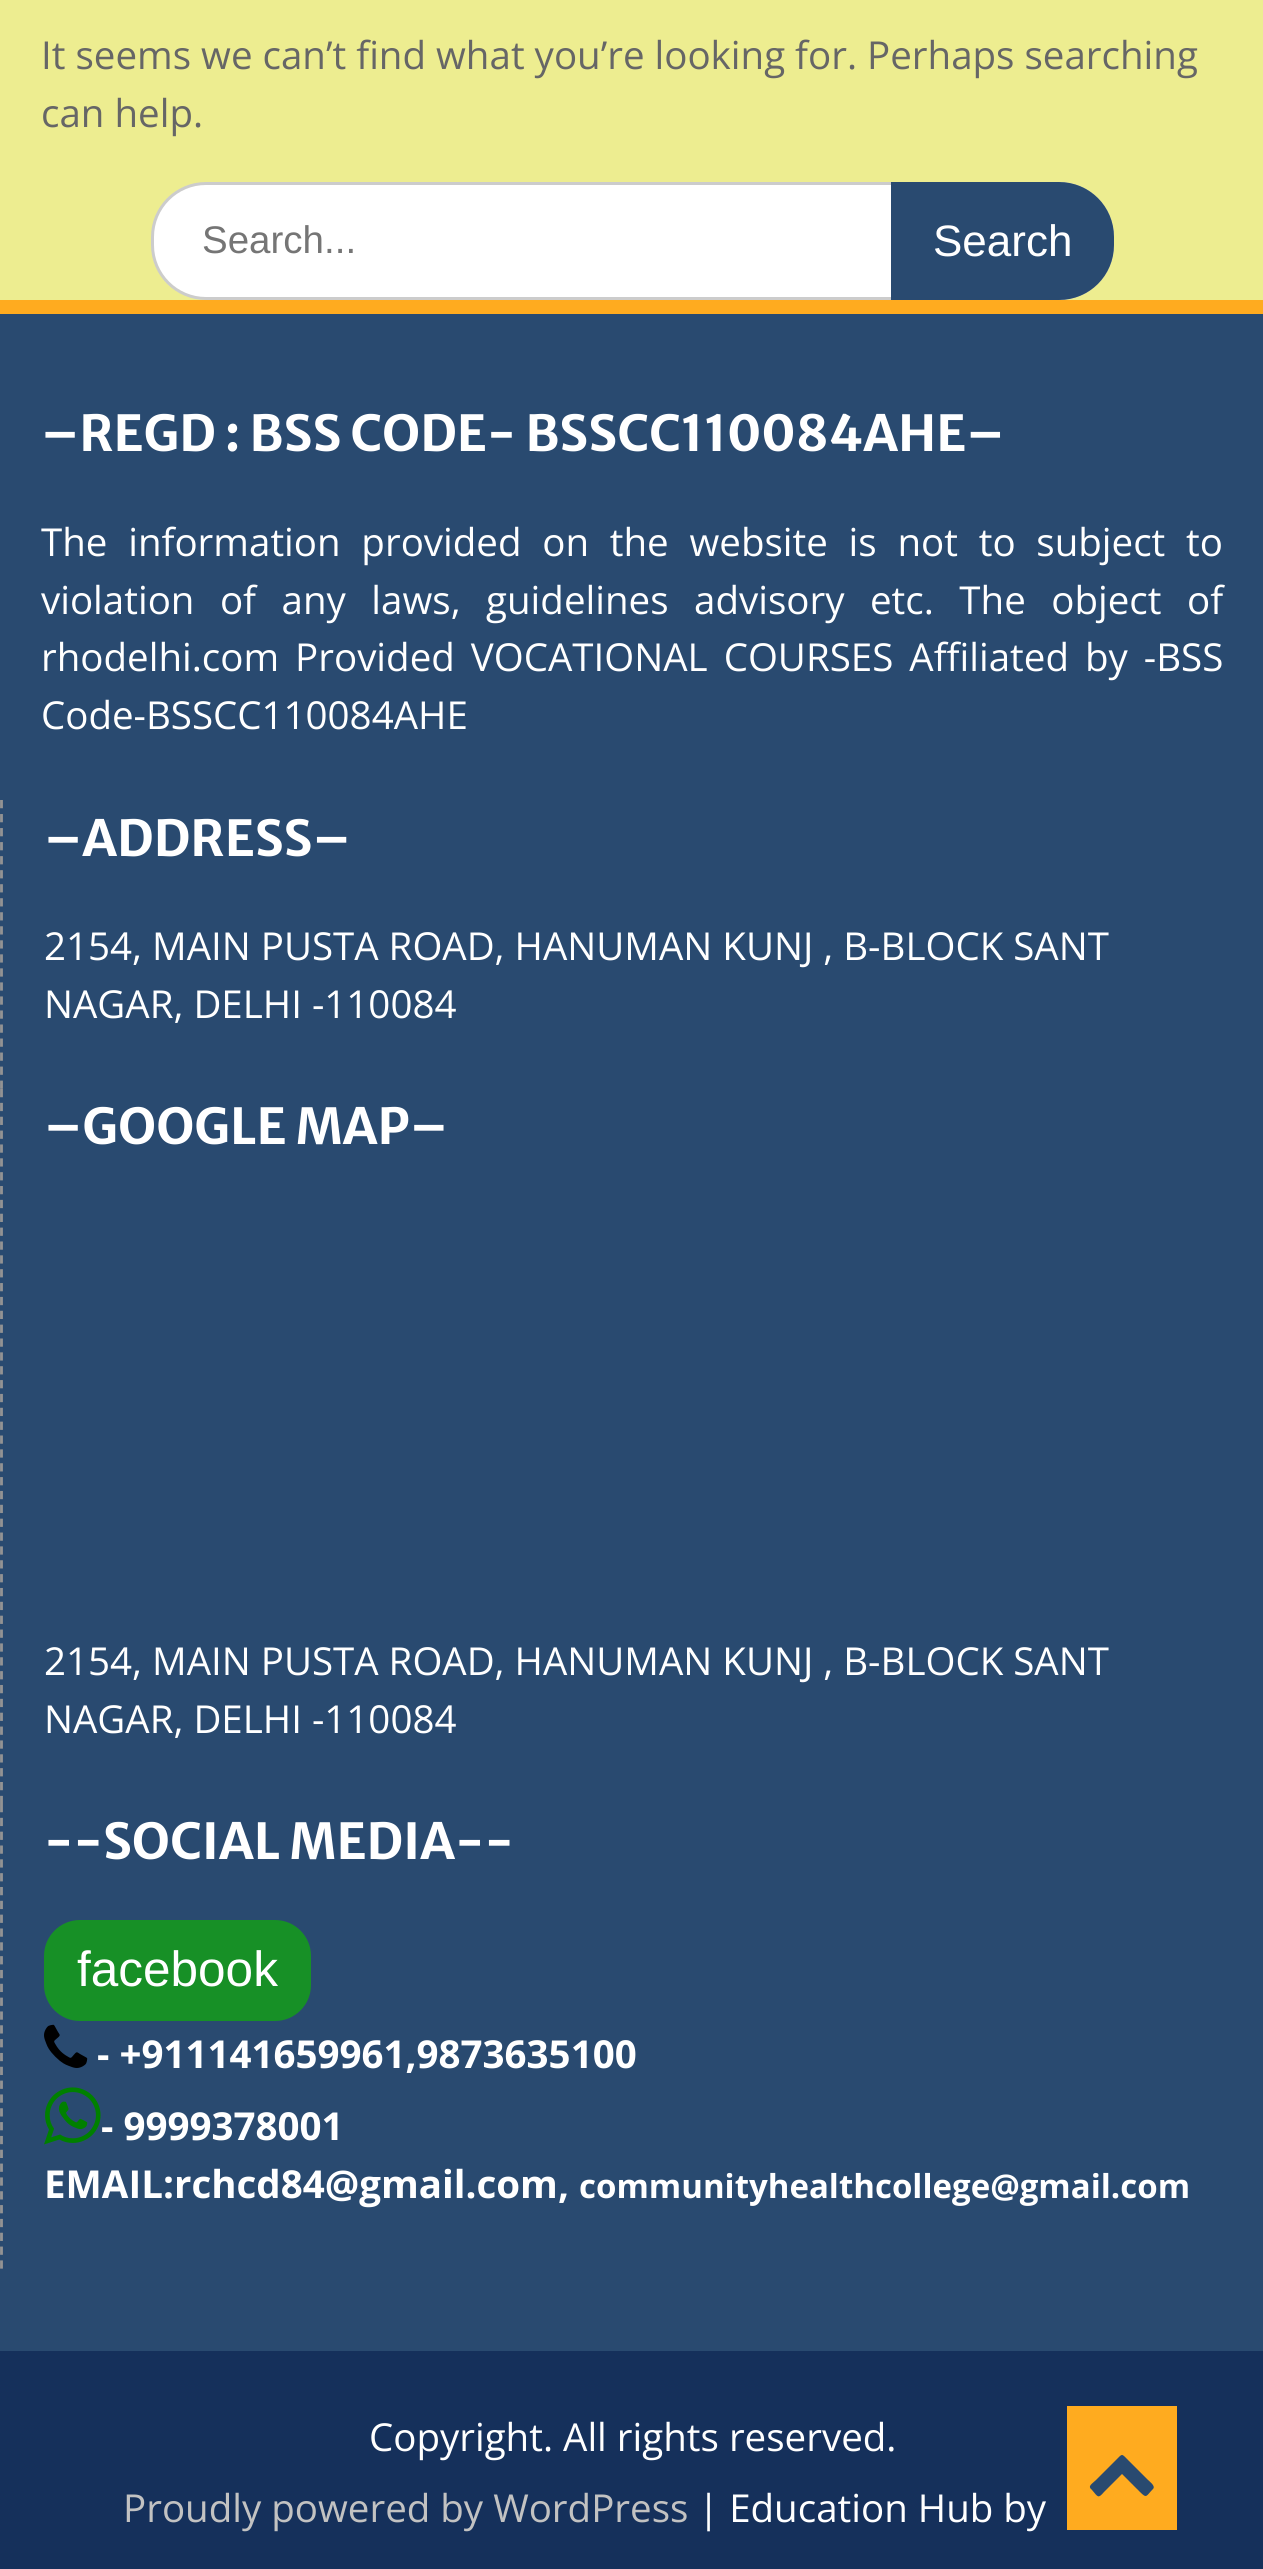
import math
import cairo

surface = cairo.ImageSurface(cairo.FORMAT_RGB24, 1263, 2569)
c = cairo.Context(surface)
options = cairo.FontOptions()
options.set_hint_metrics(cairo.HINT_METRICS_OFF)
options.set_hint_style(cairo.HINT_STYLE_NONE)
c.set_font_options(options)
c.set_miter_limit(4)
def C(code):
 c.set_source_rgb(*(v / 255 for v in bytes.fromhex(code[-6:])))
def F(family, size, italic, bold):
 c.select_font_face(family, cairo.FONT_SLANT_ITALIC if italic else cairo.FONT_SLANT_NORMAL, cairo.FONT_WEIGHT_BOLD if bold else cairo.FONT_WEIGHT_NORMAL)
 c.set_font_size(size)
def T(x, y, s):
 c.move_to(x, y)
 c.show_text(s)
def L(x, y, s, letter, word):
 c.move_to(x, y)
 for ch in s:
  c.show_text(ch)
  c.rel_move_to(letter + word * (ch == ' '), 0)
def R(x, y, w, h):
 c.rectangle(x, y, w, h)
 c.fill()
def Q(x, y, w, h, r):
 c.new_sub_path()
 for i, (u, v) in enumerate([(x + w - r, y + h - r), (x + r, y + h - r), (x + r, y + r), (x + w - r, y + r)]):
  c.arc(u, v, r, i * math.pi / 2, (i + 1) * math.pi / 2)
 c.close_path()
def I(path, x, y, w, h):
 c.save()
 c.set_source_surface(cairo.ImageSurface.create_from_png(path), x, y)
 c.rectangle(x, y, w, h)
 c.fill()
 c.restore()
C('eded90')
c.paint()
F('Open Sans',38.5,0,0)
C('666666')
T(41,69,'It seems we can’t find what you’re looking for. Perhaps searching')
T(41,127,'can help.')
C('ffffff')
Q(152.5,183.5,960,115,53.5)
c.fill_preserve()
C('cccccc')
c.set_line_width(3)
c.stroke()
F('Liberation Sans',38.5,0,0)
C('757575')
T(202,253,'Search...')
C('294a70')
c.new_path()
c.move_to(891,182)
c.line_to(1059,182)
c.curve_to(1089.5,182,1114,206.5,1114,237)
c.line_to(1114,245)
c.curve_to(1114,275.5,1089.5,300,1059,300)
c.line_to(891,300)
c.close_path()
c.fill()
F('Liberation Sans',44,0,0)
C('ffffff')
T(933,256,'Search')
C('294a70')
R(0,314,1263,2037)
C('ffab1f')
R(0,300,1263,14)
F('Merriweather Sans',49.5,0,1)
C('ffffff')
T(41,451,'–REGD : BSS CODE- BSSCC110084AHE–')
F('Open Sans',38.5,0,0)
L(41,556,'The information provided on the website is not to subject to',0,10.75)
L(41,614,'violation of any laws, guidelines advisory etc. The object of',0,15.5)
L(41,671,'rhodelhi.com Provided VOCATIONAL COURSES Affiliated by -BSS',0,6)
T(41,729,'Code-BSSCC110084AHE')
c.new_path()
c.move_to(1.5,800)
c.line_to(1.5,1089)
C('939393')
c.set_line_width(2.8)
c.set_dash([8.25,5.78])
c.stroke()
F('Merriweather Sans',49.5,0,1)
C('ffffff')
T(44,856,'–ADDRESS–')
F('Open Sans',38.5,0,0)
T(44,960,'2154, MAIN PUSTA ROAD, HANUMAN KUNJ , B-BLOCK SANT')
T(44,1018,'NAGAR, DELHI -110084')
c.new_path()
c.move_to(1.5,1089)
c.line_to(1.5,1804)
C('939393')
c.set_dash([8.25,5.61])
c.stroke()
F('Merriweather Sans',49.5,0,1)
C('ffffff')
T(44,1144,'–GOOGLE MAP–')
F('Open Sans',38.5,0,0)
T(44,1675,'2154, MAIN PUSTA ROAD, HANUMAN KUNJ , B-BLOCK SANT')
T(44,1733,'NAGAR, DELHI -110084')
c.new_path()
c.move_to(1.5,1804)
c.line_to(1.5,2269)
C('939393')
c.set_dash([8.25,5.58])
c.stroke()
F('Merriweather Sans',49.5,0,1)
C('ffffff')
T(44,1859,'--SOCIAL MEDIA--')
C('179026')
Q(44,1920,267,101,36)
c.fill()
F('Liberation Sans',49.5,0,0)
C('ffffff')
T(77,1986,'facebook')
I('1.png',44,2024,44,44)
F('Open Sans',38.5,0,1)
T(97,2068,'- +911141659961,9873635100')
I('2.png',44,2087,57,58)
T(101,2140,'- 9999378001')
T(44,2198,'EMAIL:rchcd84@gmail.com,')
F('Open Sans',33,0,1)
T(579,2198,'communityhealthcollege@gmail.com')
C('15305b')
R(0,2351,1263,218)
F('Open Sans',38.5,0,0)
C('ffffff')
T(369,2451,'Copyright. All rights reserved.')
C('c2c2c2')
T(123,2522,'Proudly powered by WordPress')
C('ffffff')
T(698,2522,'| Education Hub by')
C('ffab1f')
R(1067,2406,110,124)
C('294a70')
c.new_path()
c.move_to(1153,2489)
c.curve_to(1146,2496,1147,2499,1140,2492)
c.line_to(1122,2474)
c.line_to(1104,2492)
c.curve_to(1098,2499,1098,2497,1092,2490)
c.curve_to(1087,2486,1092,2484,1096,2480)
c.line_to(1115,2461)
c.curve_to(1123,2453,1121,2453,1129,2461)
c.line_to(1148,2480)
c.curve_to(1149,2481,1156,2486,1153,2489)
c.close_path()
c.fill()
surface.write_to_png('o.png')
